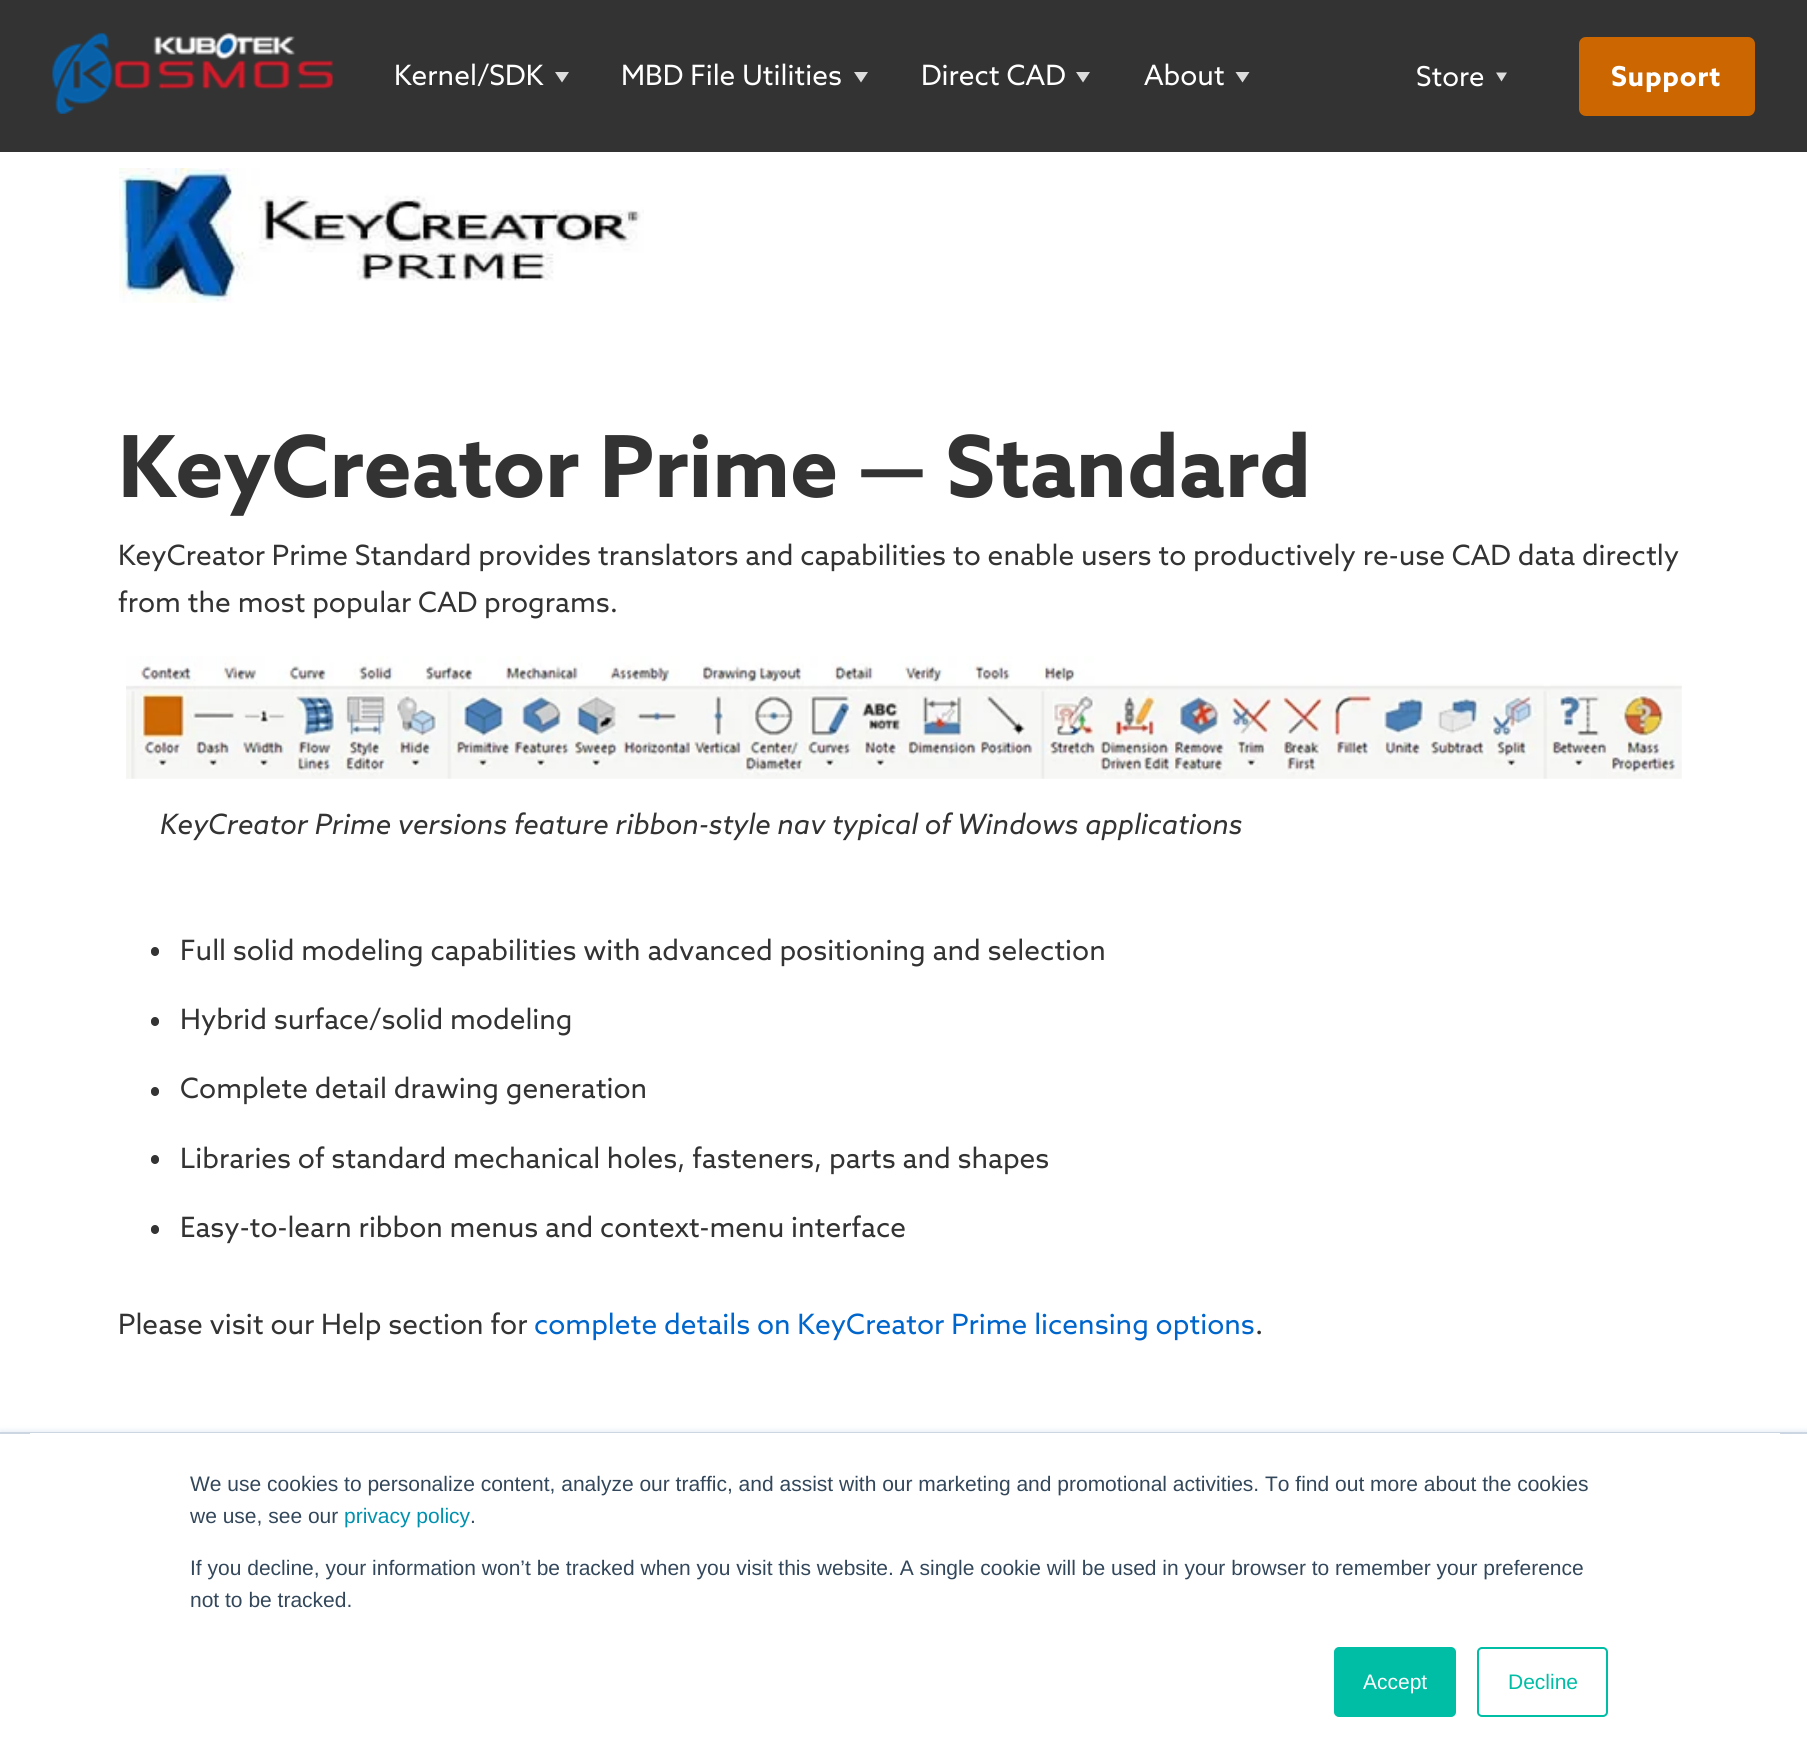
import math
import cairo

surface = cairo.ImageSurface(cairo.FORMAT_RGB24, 1807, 1761)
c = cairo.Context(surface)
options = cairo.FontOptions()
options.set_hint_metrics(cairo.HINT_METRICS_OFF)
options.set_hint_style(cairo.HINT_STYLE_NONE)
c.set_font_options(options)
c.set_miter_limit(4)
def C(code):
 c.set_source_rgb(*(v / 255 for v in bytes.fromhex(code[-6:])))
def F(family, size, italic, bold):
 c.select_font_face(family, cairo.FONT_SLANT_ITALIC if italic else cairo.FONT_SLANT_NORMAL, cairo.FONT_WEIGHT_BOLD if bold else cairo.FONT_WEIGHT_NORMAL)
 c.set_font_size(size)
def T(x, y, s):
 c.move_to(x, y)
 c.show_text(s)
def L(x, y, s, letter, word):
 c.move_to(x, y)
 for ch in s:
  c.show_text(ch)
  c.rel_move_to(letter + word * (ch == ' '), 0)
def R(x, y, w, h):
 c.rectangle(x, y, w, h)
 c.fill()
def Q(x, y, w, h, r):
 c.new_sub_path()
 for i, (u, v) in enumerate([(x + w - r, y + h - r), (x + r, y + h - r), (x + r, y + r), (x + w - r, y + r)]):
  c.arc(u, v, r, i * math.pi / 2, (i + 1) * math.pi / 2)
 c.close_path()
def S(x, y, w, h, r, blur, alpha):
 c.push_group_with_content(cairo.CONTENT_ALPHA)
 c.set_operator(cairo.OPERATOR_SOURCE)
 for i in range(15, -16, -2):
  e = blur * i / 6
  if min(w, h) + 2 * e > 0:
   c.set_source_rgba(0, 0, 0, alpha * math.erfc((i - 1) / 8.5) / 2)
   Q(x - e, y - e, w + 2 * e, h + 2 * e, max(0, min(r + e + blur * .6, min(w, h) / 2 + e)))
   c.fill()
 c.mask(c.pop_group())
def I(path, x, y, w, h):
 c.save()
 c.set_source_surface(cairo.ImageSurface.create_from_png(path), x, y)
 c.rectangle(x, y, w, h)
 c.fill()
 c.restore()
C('ffffff')
c.paint()
C('333333')
R(0,0,1807,152)
I('1.png',52,32,281,82)
F('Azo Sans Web',28,0,0)
C('ffffff')
T(394,85,'Kernel/SDK')
C('dddddd')
c.new_path()
c.move_to(555,72)
c.line_to(569,72)
c.line_to(562,82.5)
c.close_path()
c.fill()
C('ffffff')
T(621,85,'MBD File Utilities')
C('dddddd')
c.new_path()
c.move_to(854,72)
c.line_to(868,72)
c.line_to(861,82.5)
c.close_path()
c.fill()
C('ffffff')
T(921,85,'Direct CAD')
C('dddddd')
c.new_path()
c.move_to(1076,72)
c.line_to(1090,72)
c.line_to(1083,82.5)
c.close_path()
c.fill()
C('ffffff')
T(1144,85,'About')
C('dddddd')
c.new_path()
c.move_to(1235.5,72)
c.line_to(1249.5,72)
c.line_to(1242.5,82.5)
c.close_path()
c.fill()
F('Azo Sans Web',27.5,0,0)
C('ffffff')
T(1416,86,'Store')
C('dddddd')
c.new_path()
c.move_to(1496,72.5)
c.line_to(1507,72.5)
c.line_to(1501.5,81.5)
c.close_path()
c.fill()
C('cc6600')
Q(1579,37,176,79,7)
c.fill()
F('Azo Sans Web',27.5,0,1)
C('ffffff')
L(1611,86,'Support',.75,0)
I('2.png',119,168,525,135)
F('Azo Sans Web',85.5,0,1)
C('333333')
T(118,497,'KeyCreator Prime — Standard')
F('Azo Sans Web',28,0,0)
T(118,565,'KeyCreator Prime Standard provides translators and capabilities to enable users to productively re-use CAD data directly')
T(118,612,'from the most popular CAD programs.')
I('3.png',126,656,1556,123)
F('Azo Sans Web',28,1,0)
T(160,834,'KeyCreator Prime versions feature ribbon-style nav typical of Windows applications')
Q(151,947,8,9,4)
c.fill()
F('Azo Sans Web',28,0,0)
T(180,960,'Full solid modeling capabilities with advanced positioning and selection')
Q(151,1017,8,9,4)
c.fill()
T(180,1029,'Hybrid surface/solid modeling')
Q(151,1087,8,9,4)
c.fill()
T(180,1098,'Complete detail drawing generation')
Q(151,1155,8,9,4)
c.fill()
T(180,1168,'Libraries of standard mechanical holes, fasteners, parts and shapes')
Q(151,1225,8,9,4)
c.fill()
T(180,1237,'Easy-to-learn ribbon menus and context-menu interface')
T(118,1334,'Please visit our Help section for')
C('0066cc')
T(534,1334,'complete details on KeyCreator Prime licensing options')
C('333333')
T(1255,1334,'.')
C('eaf0f6')
S(0,1430,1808,331,0,2.5,1)
C('ffffff')
R(0,1434,1807,327)
C('cbd6e2')
R(0,1432,1807,2)
C('ffffff')
R(30,1433,1750,1)
F('Liberation Sans',21,0,0)
C('33475b')
T(190,1491,'We use cookies to personalize content, analyze our traffic, and assist with our marketing and promotional activities. To find out more about the cookies')
T(190,1523,'we use, see our')
C('0091ae')
T(344,1523,'privacy policy')
C('33475b')
T(470,1523,'.')
T(190,1575,'If you decline, your information won’t be tracked when you visit this website. A single cookie will be used in your browser to remember your preference')
T(190,1607,'not to be tracked.')
C('00bda5')
Q(1335,1648,120,68,4)
c.fill_preserve()
c.stroke()
C('ffffff')
T(1363,1689,'Accept')
Q(1478,1648,129,68,4)
C('00bda5')
c.stroke()
T(1508,1689,'Decline')
surface.write_to_png('o.png')
